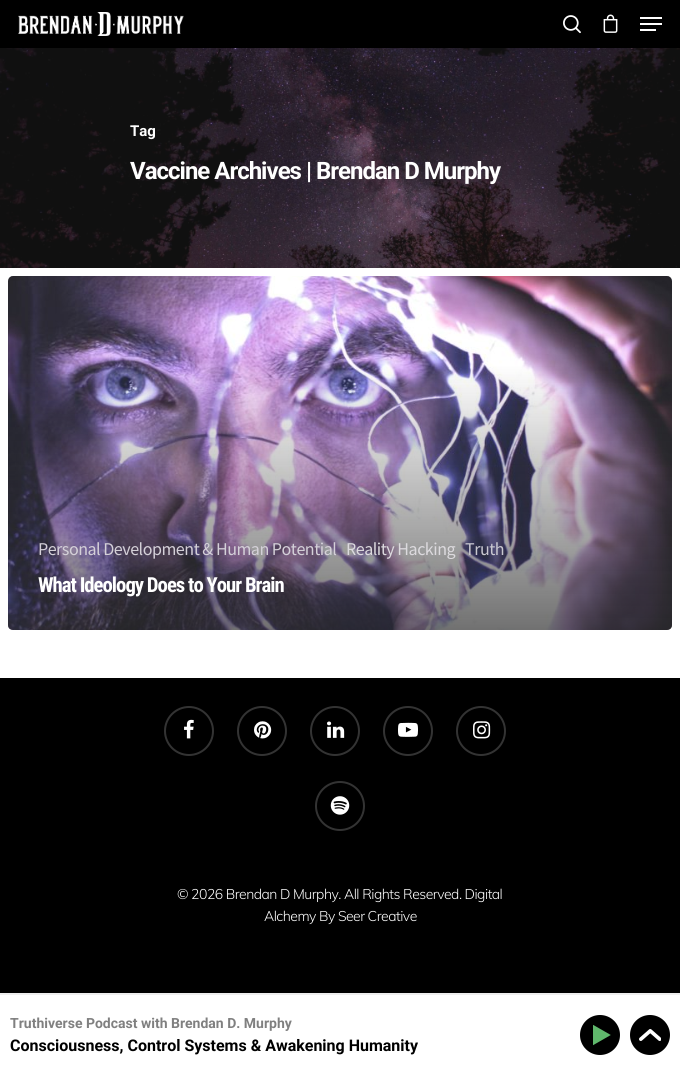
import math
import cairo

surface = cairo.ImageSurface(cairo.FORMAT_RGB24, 680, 1073)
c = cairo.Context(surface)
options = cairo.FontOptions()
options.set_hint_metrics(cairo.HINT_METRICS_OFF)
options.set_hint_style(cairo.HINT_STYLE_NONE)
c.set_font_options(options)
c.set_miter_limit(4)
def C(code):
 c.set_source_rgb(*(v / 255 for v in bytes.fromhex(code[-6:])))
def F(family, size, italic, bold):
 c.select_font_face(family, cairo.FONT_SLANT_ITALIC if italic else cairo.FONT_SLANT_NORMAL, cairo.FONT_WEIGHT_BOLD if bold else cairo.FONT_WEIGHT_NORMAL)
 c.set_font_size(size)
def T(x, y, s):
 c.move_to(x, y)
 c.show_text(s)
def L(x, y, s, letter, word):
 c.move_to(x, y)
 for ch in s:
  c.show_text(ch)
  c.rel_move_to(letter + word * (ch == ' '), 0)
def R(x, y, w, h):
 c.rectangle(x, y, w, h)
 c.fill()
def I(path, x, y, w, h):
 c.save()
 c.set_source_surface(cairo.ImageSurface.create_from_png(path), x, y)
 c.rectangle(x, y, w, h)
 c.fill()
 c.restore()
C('ffffff')
c.paint()
C('000000')
R(0,0,680,48)
I('1.png',18,12,166,24)
I('2.png',563,15,18,19)
I('3.png',603,14,15,19)
C('ffffff')
R(640,17,22,2)
R(640,29,16,2)
R(640,23,22,2)
I('4.png',0,48,680,220)
F('Roboto',15,0,1)
T(130,136,'Tag')
F('Roboto',24,0,1)
L(130,179,'Vaccine Archives | Brendan D Murphy',-1,0)
I('5.png',8,276,664,354)
gradient = cairo.LinearGradient(342,365,342,632)
gradient.add_color_stop_rgba(0,0.137,0.137,0.137,0)
gradient.add_color_stop_rgba(1,0.137,0.137,0.137,.65)
c.set_source(gradient)
c.new_path()
c.move_to(8,365)
c.line_to(672,365)
c.line_to(672,625)
c.curve_to(672,628,670,630,667,630)
c.line_to(13,630)
c.curve_to(10,630,8,628,8,625)
c.close_path()
c.fill()
F('Source Sans Pro',18,0,0)
C('d4d0d8')
L(38,555,'Personal Development & Human Potential',-.5,0)
C('dcdade')
L(346,555,'Reality Hacking',-.5,0)
C('c9c8d1')
L(465,555,'Truth',-.5,0)
F('Roboto Condensed',20.75,0,1)
C('ffffff')
L(38,592,'What Ideology Does to Your Brain',-1,0)
C('000000')
R(0,678,680,315)
I('6.png',184,719,10,20)
c.arc(189,731,24,0,2 * math.pi)
C('333333')
c.stroke()
I('7.png',254,721,18,18)
c.arc(262,731,24,0,2 * math.pi)
c.stroke()
I('8.png',327,721,18,17)
c.arc(335,731,24,0,2 * math.pi)
c.stroke()
I('9.png',398,722,20,15)
c.arc(408,731,24,0,2 * math.pi)
c.stroke()
I('10.png',473,721,18,18)
c.arc(481,731,24,0,2 * math.pi)
c.stroke()
I('11.png',330,796,20,19)
c.arc(340,806,24,0,2 * math.pi)
c.stroke()
F('Muli Light',14,0,0)
C('ffffff')
L(177,899,'© 2026 Brendan D Murphy. All Rights Reserved. Digital',-.5,0)
L(264,921,'Alchemy By Seer Creative',-.5,0)
C('eeeeee')
R(0,993,680,2)
F('Roboto',14,0,1)
C('808080')
T(10,1028,'Truthiverse Podcast with Brendan D. Murphy')
F('Roboto',16,0,1)
C('000000')
T(10,1051,'Consciousness, Control Systems & Awakening Humanity')
c.new_path()
c.arc(600,1035,20,0,2 * math.pi)
c.fill()
C('60b86c')
R(593,1025,7,21)
R(600,1028,11,14)
c.save()
c.rectangle(587,1022,26,26)
c.clip()
C('000000')
c.new_path()
c.move_to(603,1006.5)
c.line_to(630,1022)
c.line_to(619.5,1040)
c.line_to(592.5,1024.5)
c.close_path()
c.fill()
c.new_path()
c.move_to(592.5,1045.5)
c.line_to(619.5,1030)
c.line_to(630,1048)
c.line_to(603,1063.5)
c.close_path()
c.fill()
c.restore()
C('000000')
c.arc(650,1035,20,0,2 * math.pi)
c.fill()
I('12.png',639,1029,22,12)
surface.write_to_png('o.png')
